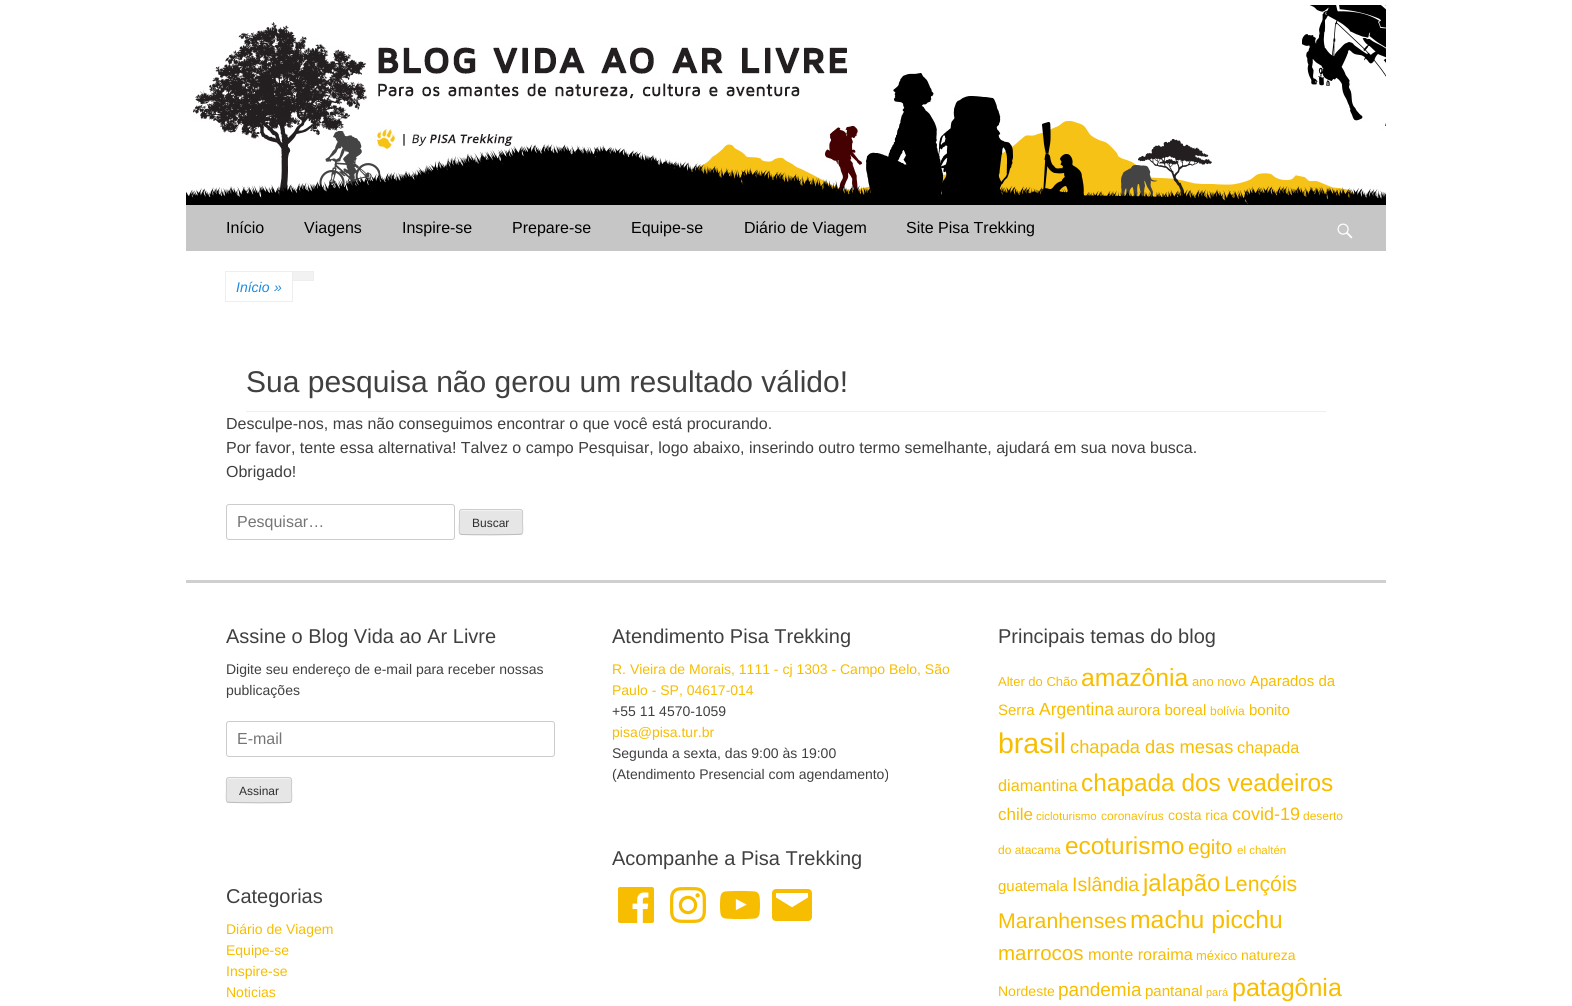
import math
import cairo

surface = cairo.ImageSurface(cairo.FORMAT_RGB24, 1572, 1006)
c = cairo.Context(surface)
options = cairo.FontOptions()
options.set_hint_metrics(cairo.HINT_METRICS_OFF)
options.set_hint_style(cairo.HINT_STYLE_NONE)
c.set_font_options(options)
c.set_miter_limit(4)
def C(code):
 c.set_source_rgb(*(v / 255 for v in bytes.fromhex(code[-6:])))
def F(family, size, italic, bold):
 c.select_font_face(family, cairo.FONT_SLANT_ITALIC if italic else cairo.FONT_SLANT_NORMAL, cairo.FONT_WEIGHT_BOLD if bold else cairo.FONT_WEIGHT_NORMAL)
 c.set_font_size(size)
def T(x, y, s):
 c.move_to(x, y)
 c.show_text(s)
def R(x, y, w, h):
 c.rectangle(x, y, w, h)
 c.fill()
def Q(x, y, w, h, r):
 c.new_sub_path()
 for i, (u, v) in enumerate([(x + w - r, y + h - r), (x + r, y + h - r), (x + r, y + r), (x + w - r, y + r)]):
  c.arc(u, v, r, i * math.pi / 2, (i + 1) * math.pi / 2)
 c.close_path()
def I(path, x, y, w, h):
 c.save()
 c.set_source_surface(cairo.ImageSurface.create_from_png(path), x, y)
 c.rectangle(x, y, w, h)
 c.fill()
 c.restore()
C('ffffff')
c.paint()
I('1.png',186,5,1200,200)
C('c6c6c6')
R(186,205,1200,46)
F('Liberation Sans',16,0,0)
C('000000')
T(226,233,'Início')
T(304,233,'Viagens')
T(402,233,'Inspire-se')
T(512,233,'Prepare-se')
T(631,233,'Equipe-se')
T(744,233,'Diário de Viagem')
T(906,233,'Site Pisa Trekking')
I('2.png',1337,223,16,16)
c.rectangle(225.5,271.5,67,30)
C('eeeeee')
c.set_line_width(1)
c.stroke()
C('f2f2f2')
c.rectangle(292.5,271.5,21,9)
c.fill_preserve()
C('eeeeee')
c.stroke()
F('Liberation Sans',14,1,0)
C('1b8be0')
T(236,292,'Início')
T(274,292,'»')
C('eeeeee')
R(246,411,1080,1)
F('Liberation Sans',30,0,0)
C('404040')
T(246,392,'Sua pesquisa não gerou um resultado válido!')
F('Liberation Sans',16,0,0)
T(226,429,'Desculpe-nos, mas não conseguimos encontrar o que você está procurando.')
T(226,453,'Por favor, tente essa alternativa! Talvez o campo Pesquisar, logo abaixo, inserindo outro termo semelhante, ajudará em sua nova busca.')
T(226,477,'Obrigado!')
Q(226.5,504.5,228,35,2.5)
C('cccccc')
c.stroke()
C('757575')
T(237,527,'Pesquisar…')
C('e6e6e6')
Q(459,509,64,26,3)
c.fill()
C('f3f3f3')
c.new_path()
c.move_to(462,511)
c.line_to(520,511)
c.curve_to(521,511,522,512,522,513)
c.curve_to(522,507,514,510,510,510)
c.line_to(472,510)
c.curve_to(468,510,460,507,460,513)
c.curve_to(460,512,461,511,462,511)
c.close_path()
c.fill()
c.new_path()
c.move_to(522,534)
c.line_to(521.5,534)
c.curve_to(520.5,535,467,535,462,534.5)
c.line_to(460,534)
C('bbbbbb')
c.stroke()
c.new_path()
c.move_to(460,534)
c.curve_to(458.5,532,459.5,524.5,459.5,522)
c.curve_to(459.5,507.5,457,509.5,471.5,509.5)
c.line_to(510.5,509.5)
c.curve_to(525,509.5,522.5,507.5,522.5,522)
c.curve_to(522.5,524.5,523.5,532,522,534)
C('cccccc')
c.stroke()
F('Liberation Sans',12,0,0)
C('2e2e2e')
T(472,527,'Buscar')
C('cfcfcf')
R(186,580,1200,3)
F('Liberation Sans',20,0,0)
C('404040')
T(226,643,'Assine o Blog Vida ao Ar Livre')
F('Liberation Sans',14,0,0)
T(226,674,'Digite seu endereço de e-mail para receber nossas')
T(226,695,'publicações')
Q(226.5,721.5,328,35,2.5)
C('cccccc')
c.stroke()
F('Liberation Sans',16,0,0)
C('757575')
T(237,744,'E-mail')
C('e6e6e6')
Q(226,777,66,26,3)
c.fill()
C('f3f3f3')
c.set_fill_rule(cairo.FILL_RULE_EVEN_ODD)
c.new_path()
c.move_to(229,779)
c.line_to(289,779)
c.line_to(291,780)
c.curve_to(291,779,290,778,289,778)
c.line_to(229,778)
c.curve_to(228,778,227,779,227,780)
c.line_to(227,782)
c.curve_to(227,780,228,779,229,779)
c.close_path()
c.move_to(227,801)
c.line_to(227,798)
c.close_path()
c.fill()
c.new_path()
c.move_to(291,802)
c.line_to(289,802.5)
c.curve_to(284,803,228.5,803,227.5,802)
c.line_to(227,802)
C('bbbbbb')
c.stroke()
c.new_path()
c.move_to(227,802)
c.curve_to(225.5,800,226.5,792.5,226.5,790)
c.curve_to(226.5,775.5,224,777.5,239,777.5)
c.line_to(279,777.5)
c.curve_to(294,777.5,291.5,775.5,291.5,790)
c.curve_to(291.5,792.5,292.5,800,291,802)
C('cccccc')
c.stroke()
F('Liberation Sans',12,0,0)
C('2e2e2e')
T(239,795,'Assinar')
F('Liberation Sans',20,0,0)
C('404040')
T(226,903,'Categorias')
F('Liberation Sans',14,0,0)
C('f7bd00')
T(226,934,'Diário de Viagem')
T(226,955,'Equipe-se')
T(226,976,'Inspire-se')
T(226,997,'Noticias')
F('Liberation Sans',20,0,0)
C('404040')
T(612,643,'Atendimento Pisa Trekking')
F('Liberation Sans',14,0,0)
C('f7bd00')
T(612,674,'R. Vieira de Morais, 1111 - cj 1303 - Campo Belo, São')
T(612,695,'Paulo - SP, 04617-014')
C('404040')
T(612,716,'+55 11 4570-1059')
C('f7bd00')
T(612,737,'pisa@pisa.tur.br')
C('404040')
T(612,758,'Segunda a sexta, das 9:00 às 19:00')
T(612,779,'(Atendimento Presencial com agendamento)')
F('Liberation Sans',20,0,0)
T(612,865,'Acompanhe a Pisa Trekking')
I('3.png',618,887,36,36)
I('4.png',670,887,36,36)
I('5.png',720,890,40,30)
I('6.png',772,889,40,32)
T(998,643,'Principais temas do blog')
F('Liberation Sans',13,0,0)
C('f7bd00')
T(998,686,'Alter do Chão')
F('Liberation Sans',24.75,0,0)
T(1081,686,'amazônia')
F('Liberation Sans',13,0,0)
T(1192,686,'ano novo')
F('Liberation Sans',15,0,0)
T(1250,686,'Aparados da')
T(998,715,'Serra')
F('Liberation Sans',17.5,0,0)
T(1039,715,'Argentina')
F('Liberation Sans',15,0,0)
T(1117,715,'aurora boreal')
F('Liberation Sans',12,0,0)
T(1210,715,'bolívia')
F('Liberation Sans',15,0,0)
T(1249,715,'bonito')
F('Liberation Sans',28.5,0,0)
T(998,753,'brasil')
F('Liberation Sans',18.25,0,0)
T(1070,753,'chapada das mesas')
F('Liberation Sans',16.25,0,0)
T(1237,753,'chapada')
T(998,791,'diamantina')
F('Liberation Sans',24.4,0,0)
T(1081,791,'chapada dos veadeiros')
F('Liberation Sans',17,0,0)
T(998,820,'chile')
F('Liberation Sans',11.5,0,0)
T(1036,820,'cicloturismo')
F('Liberation Sans',12,0,0)
T(1101,820,'coronavírus')
F('Liberation Sans',14,0,0)
T(1168,820,'costa rica')
F('Liberation Sans',18,0,0)
T(1232,820,'covid-19')
F('Liberation Sans',12,0,0)
T(1303,820,'deserto')
T(998,854,'do atacama')
F('Liberation Sans',24.4,0,0)
T(1065,854,'ecoturismo')
F('Liberation Sans',20.5,0,0)
T(1188,854,'egito')
F('Liberation Sans',11.5,0,0)
T(1237,854,'el chaltén')
F('Liberation Sans',15,0,0)
T(998,891,'guatemala')
F('Liberation Sans',19.5,0,0)
T(1072,891,'Islândia')
F('Liberation Sans',24,0,0)
T(1143,891,'jalapão')
F('Liberation Sans',21.25,0,0)
T(1224,891,'Lençóis')
T(998,928,'Maranhenses')
F('Liberation Sans',24.75,0,0)
T(1130,928,'machu picchu')
F('Liberation Sans',20.5,0,0)
T(998,960,'marrocos')
F('Liberation Sans',16.25,0,0)
T(1088,960,'monte roraima')
F('Liberation Sans',13,0,0)
T(1196,960,'méxico')
F('Liberation Sans',14,0,0)
T(1241,960,'natureza')
T(998,996,'Nordeste')
F('Liberation Sans',19,0,0)
T(1058,996,'pandemia')
F('Liberation Sans',15,0,0)
T(1145,996,'pantanal')
F('Liberation Sans',11,0,0)
T(1206,996,'pará')
F('Liberation Sans',25,0,0)
T(1232,996,'patagônia')
surface.write_to_png('o.png')
